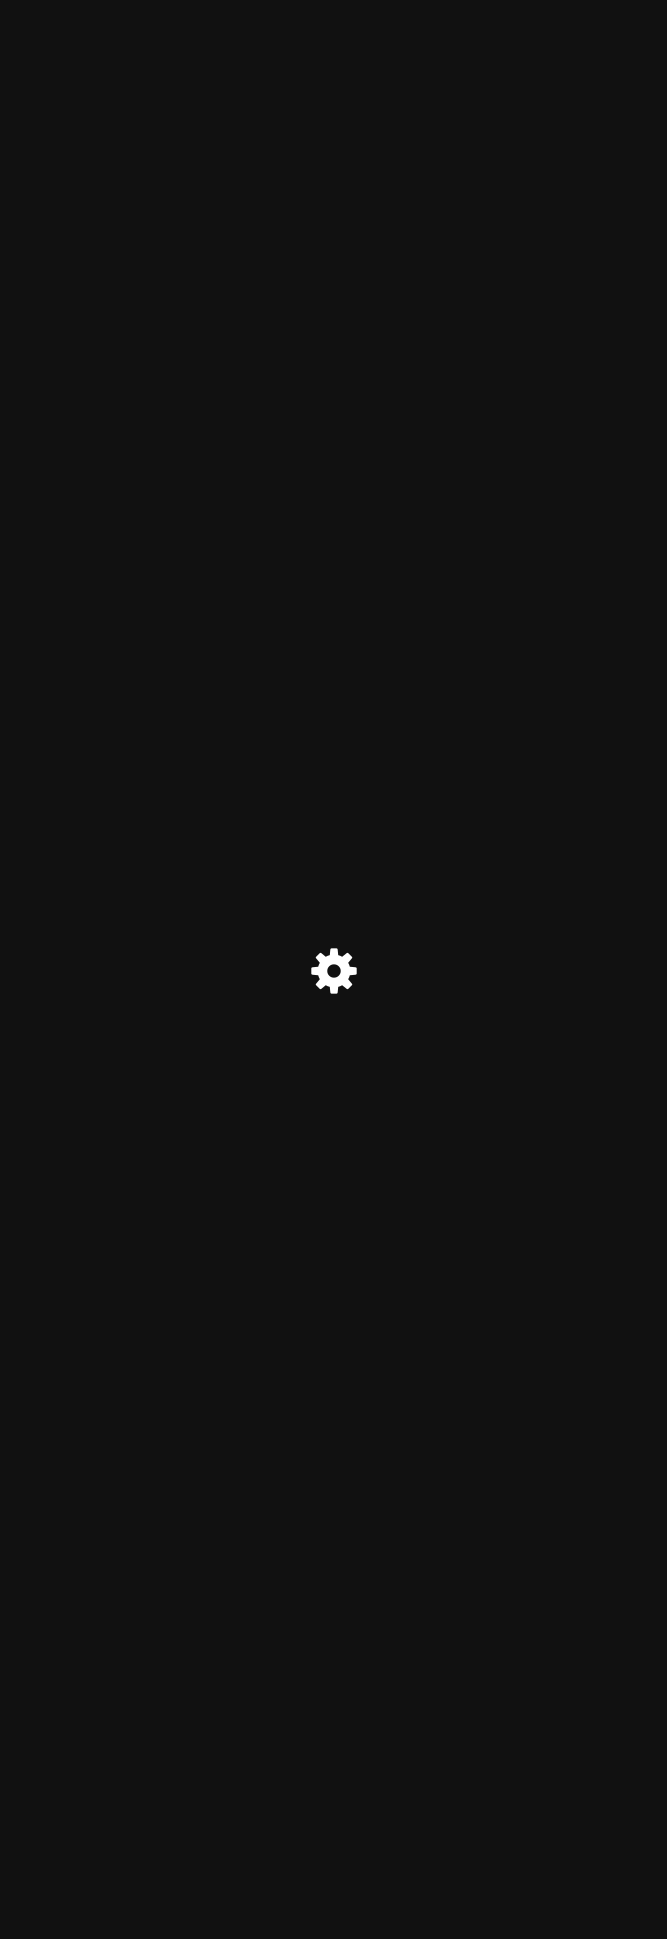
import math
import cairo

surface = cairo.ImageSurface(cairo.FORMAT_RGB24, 667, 1939)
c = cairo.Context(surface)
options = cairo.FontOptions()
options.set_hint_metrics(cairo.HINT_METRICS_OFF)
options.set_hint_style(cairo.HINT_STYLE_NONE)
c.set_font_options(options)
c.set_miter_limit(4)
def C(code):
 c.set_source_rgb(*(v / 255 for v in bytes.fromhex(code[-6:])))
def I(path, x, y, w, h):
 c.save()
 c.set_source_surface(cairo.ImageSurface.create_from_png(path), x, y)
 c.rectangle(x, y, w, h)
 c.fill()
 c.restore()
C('111111')
c.paint()
I('1.png',311,948,46,46)
surface.write_to_png('o.png')
